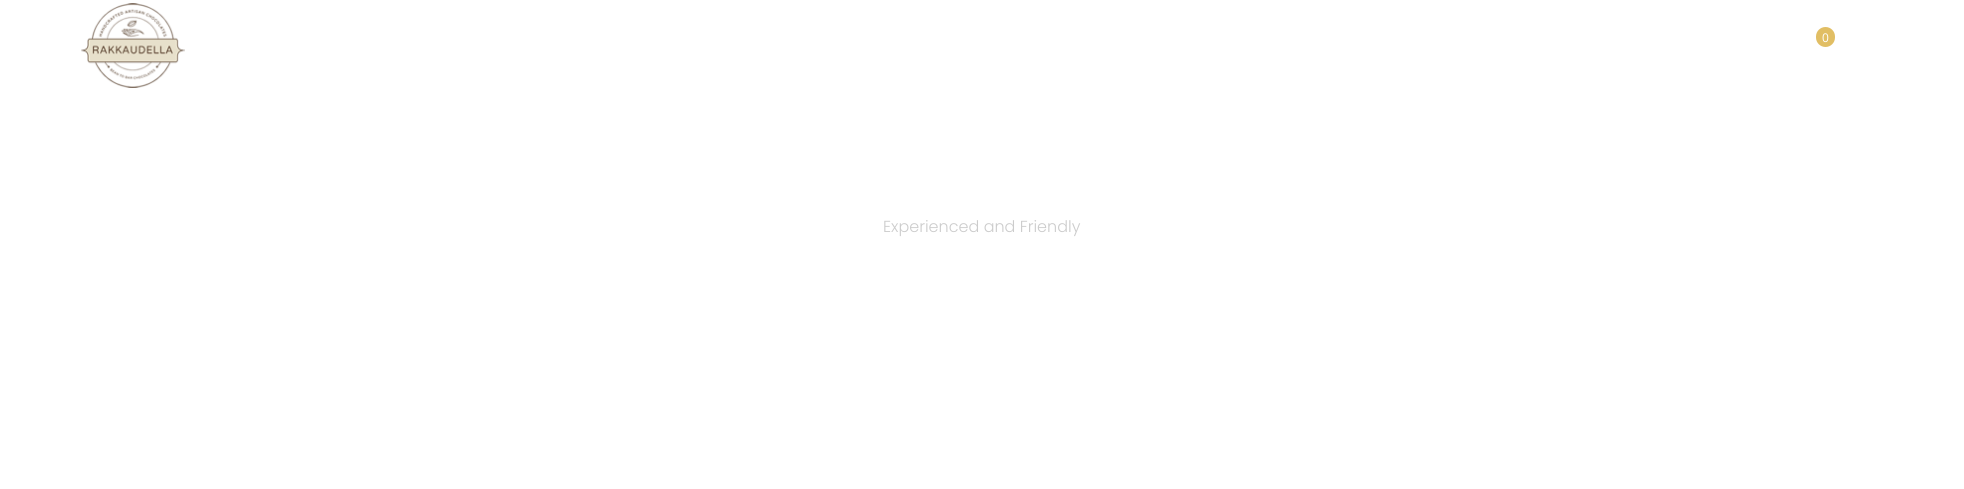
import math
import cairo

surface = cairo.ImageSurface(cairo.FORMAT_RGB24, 1964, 489)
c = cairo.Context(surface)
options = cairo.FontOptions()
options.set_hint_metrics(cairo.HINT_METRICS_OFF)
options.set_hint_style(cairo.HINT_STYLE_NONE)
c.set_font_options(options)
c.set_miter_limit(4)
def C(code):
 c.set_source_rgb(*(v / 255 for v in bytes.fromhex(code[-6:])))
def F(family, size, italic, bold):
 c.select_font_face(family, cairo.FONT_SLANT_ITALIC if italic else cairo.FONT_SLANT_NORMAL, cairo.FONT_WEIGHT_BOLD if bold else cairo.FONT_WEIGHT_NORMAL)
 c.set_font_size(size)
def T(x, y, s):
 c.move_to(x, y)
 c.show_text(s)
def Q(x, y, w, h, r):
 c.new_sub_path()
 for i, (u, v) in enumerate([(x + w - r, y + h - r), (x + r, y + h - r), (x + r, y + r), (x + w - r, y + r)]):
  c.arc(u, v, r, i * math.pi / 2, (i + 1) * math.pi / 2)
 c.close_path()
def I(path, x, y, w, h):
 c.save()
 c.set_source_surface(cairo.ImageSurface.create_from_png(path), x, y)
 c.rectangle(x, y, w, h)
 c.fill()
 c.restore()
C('ffffff')
c.paint()
I('1.png',81,3,104,85)
C('e1be64')
Q(1816,27,19,20,9.5)
c.fill()
F('Open Sans',12,0,0)
C('ffffff')
T(1822,42,'0')
F('Poppins Light',16,0,0)
C('cccccc')
T(883,232,'Experienced and Friendly')
surface.write_to_png('o.png')
